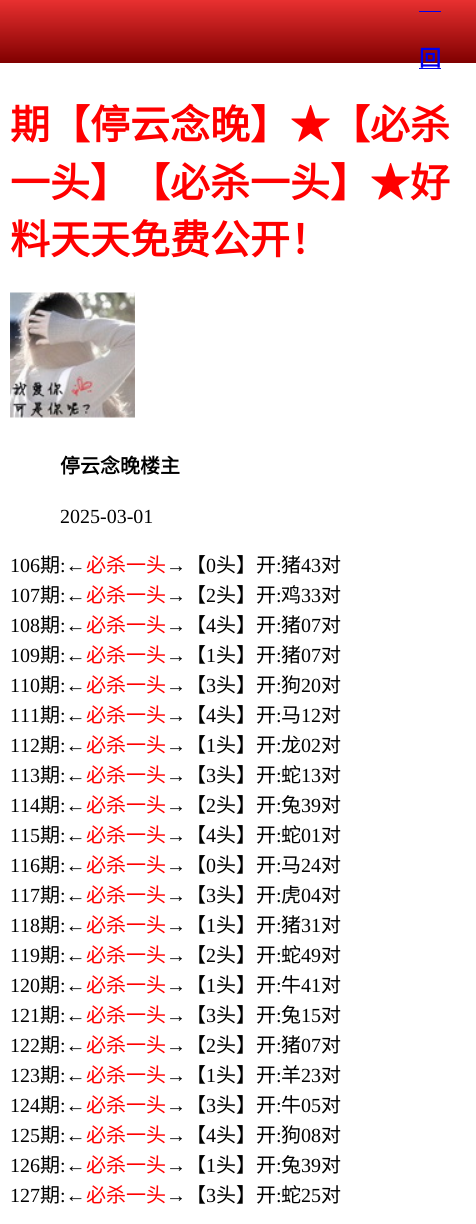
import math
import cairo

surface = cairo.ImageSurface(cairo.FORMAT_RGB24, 476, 1224)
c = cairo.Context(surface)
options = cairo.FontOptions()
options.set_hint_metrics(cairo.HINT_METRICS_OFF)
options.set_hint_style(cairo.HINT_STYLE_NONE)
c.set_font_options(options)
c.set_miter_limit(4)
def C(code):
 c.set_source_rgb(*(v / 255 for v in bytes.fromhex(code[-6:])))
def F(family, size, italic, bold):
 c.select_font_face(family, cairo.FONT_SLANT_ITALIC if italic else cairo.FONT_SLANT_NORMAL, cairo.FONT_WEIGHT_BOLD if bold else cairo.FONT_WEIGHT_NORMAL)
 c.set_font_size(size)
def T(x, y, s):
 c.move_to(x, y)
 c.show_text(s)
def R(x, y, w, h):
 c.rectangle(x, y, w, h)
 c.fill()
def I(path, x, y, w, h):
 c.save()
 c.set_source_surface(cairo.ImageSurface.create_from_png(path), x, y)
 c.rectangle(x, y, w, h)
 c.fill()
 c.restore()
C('ffffff')
c.paint()
gradient = cairo.LinearGradient(238,63,238,0)
gradient.add_color_stop_rgba(0,0.502,0,0,1)
gradient.add_color_stop_rgba(1,0.91,0.188,0.188,1)
c.set_source(gradient)
R(0,0,476,63)
F('Noto Sans CJK SC',22,0,1)
C('0000ee')
T(419,66,'回')
R(419,11,22,1)
R(419,68,22,1)
F('Noto Sans CJK SC',40,0,1)
C('ff0000')
T(10,139,'期【停云念晚】★【必杀')
T(10,197,'一头】【必杀一头】★好')
T(10,254,'料天天免费公开！')
I('1.png',10,292,125,126)
F('Noto Sans CJK SC',20,0,1)
C('000000')
T(60,473,'停云念晚楼主')
F('Liberation Serif',20,0,0)
T(60,523,'2025-03-01')
T(10,572,'106')
F('Noto Sans CJK SC',20,0,0)
T(40,572,'期')
F('Liberation Serif',20,0,0)
T(60,572,':←')
F('Noto Sans CJK SC',20,0,0)
C('ff0000')
T(86,572,'必杀一头')
F('Liberation Serif',20,0,0)
C('000000')
T(166,572,'→')
F('Noto Sans CJK SC',20,0,0)
T(186,572,'【')
F('Liberation Serif',20,0,0)
T(206,572,'0')
F('Noto Sans CJK SC',20,0,0)
T(216,572,'头】开')
F('Liberation Serif',20,0,0)
T(276,572,':')
F('Noto Sans CJK SC',20,0,0)
T(281,572,'猪')
F('Liberation Serif',20,0,0)
T(301,572,'43')
F('Noto Sans CJK SC',20,0,0)
T(321,572,'对')
F('Liberation Serif',20,0,0)
T(10,602,'107')
F('Noto Sans CJK SC',20,0,0)
T(40,602,'期')
F('Liberation Serif',20,0,0)
T(60,602,':←')
F('Noto Sans CJK SC',20,0,0)
C('ff0000')
T(86,602,'必杀一头')
F('Liberation Serif',20,0,0)
C('000000')
T(166,602,'→')
F('Noto Sans CJK SC',20,0,0)
T(186,602,'【')
F('Liberation Serif',20,0,0)
T(206,602,'2')
F('Noto Sans CJK SC',20,0,0)
T(216,602,'头】开')
F('Liberation Serif',20,0,0)
T(276,602,':')
F('Noto Sans CJK SC',20,0,0)
T(281,602,'鸡')
F('Liberation Serif',20,0,0)
T(301,602,'33')
F('Noto Sans CJK SC',20,0,0)
T(321,602,'对')
F('Liberation Serif',20,0,0)
T(10,632,'108')
F('Noto Sans CJK SC',20,0,0)
T(40,632,'期')
F('Liberation Serif',20,0,0)
T(60,632,':←')
F('Noto Sans CJK SC',20,0,0)
C('ff0000')
T(86,632,'必杀一头')
F('Liberation Serif',20,0,0)
C('000000')
T(166,632,'→')
F('Noto Sans CJK SC',20,0,0)
T(186,632,'【')
F('Liberation Serif',20,0,0)
T(206,632,'4')
F('Noto Sans CJK SC',20,0,0)
T(216,632,'头】开')
F('Liberation Serif',20,0,0)
T(276,632,':')
F('Noto Sans CJK SC',20,0,0)
T(281,632,'猪')
F('Liberation Serif',20,0,0)
T(301,632,'07')
F('Noto Sans CJK SC',20,0,0)
T(321,632,'对')
F('Liberation Serif',20,0,0)
T(10,662,'109')
F('Noto Sans CJK SC',20,0,0)
T(40,662,'期')
F('Liberation Serif',20,0,0)
T(60,662,':←')
F('Noto Sans CJK SC',20,0,0)
C('ff0000')
T(86,662,'必杀一头')
F('Liberation Serif',20,0,0)
C('000000')
T(166,662,'→')
F('Noto Sans CJK SC',20,0,0)
T(186,662,'【')
F('Liberation Serif',20,0,0)
T(206,662,'1')
F('Noto Sans CJK SC',20,0,0)
T(216,662,'头】开')
F('Liberation Serif',20,0,0)
T(276,662,':')
F('Noto Sans CJK SC',20,0,0)
T(281,662,'猪')
F('Liberation Serif',20,0,0)
T(301,662,'07')
F('Noto Sans CJK SC',20,0,0)
T(321,662,'对')
F('Liberation Serif',20,0,0)
T(10,692,'110')
F('Noto Sans CJK SC',20,0,0)
T(40,692,'期')
F('Liberation Serif',20,0,0)
T(60,692,':←')
F('Noto Sans CJK SC',20,0,0)
C('ff0000')
T(86,692,'必杀一头')
F('Liberation Serif',20,0,0)
C('000000')
T(166,692,'→')
F('Noto Sans CJK SC',20,0,0)
T(186,692,'【')
F('Liberation Serif',20,0,0)
T(206,692,'3')
F('Noto Sans CJK SC',20,0,0)
T(216,692,'头】开')
F('Liberation Serif',20,0,0)
T(276,692,':')
F('Noto Sans CJK SC',20,0,0)
T(281,692,'狗')
F('Liberation Serif',20,0,0)
T(301,692,'20')
F('Noto Sans CJK SC',20,0,0)
T(321,692,'对')
F('Liberation Serif',20,0,0)
T(10,722,'111')
F('Noto Sans CJK SC',20,0,0)
T(40,722,'期')
F('Liberation Serif',20,0,0)
T(60,722,':←')
F('Noto Sans CJK SC',20,0,0)
C('ff0000')
T(86,722,'必杀一头')
F('Liberation Serif',20,0,0)
C('000000')
T(166,722,'→')
F('Noto Sans CJK SC',20,0,0)
T(186,722,'【')
F('Liberation Serif',20,0,0)
T(206,722,'4')
F('Noto Sans CJK SC',20,0,0)
T(216,722,'头】开')
F('Liberation Serif',20,0,0)
T(276,722,':')
F('Noto Sans CJK SC',20,0,0)
T(281,722,'马')
F('Liberation Serif',20,0,0)
T(301,722,'12')
F('Noto Sans CJK SC',20,0,0)
T(321,722,'对')
F('Liberation Serif',20,0,0)
T(10,752,'112')
F('Noto Sans CJK SC',20,0,0)
T(40,752,'期')
F('Liberation Serif',20,0,0)
T(60,752,':←')
F('Noto Sans CJK SC',20,0,0)
C('ff0000')
T(86,752,'必杀一头')
F('Liberation Serif',20,0,0)
C('000000')
T(166,752,'→')
F('Noto Sans CJK SC',20,0,0)
T(186,752,'【')
F('Liberation Serif',20,0,0)
T(206,752,'1')
F('Noto Sans CJK SC',20,0,0)
T(216,752,'头】开')
F('Liberation Serif',20,0,0)
T(276,752,':')
F('Noto Sans CJK SC',20,0,0)
T(281,752,'龙')
F('Liberation Serif',20,0,0)
T(301,752,'02')
F('Noto Sans CJK SC',20,0,0)
T(321,752,'对')
F('Liberation Serif',20,0,0)
T(10,782,'113')
F('Noto Sans CJK SC',20,0,0)
T(40,782,'期')
F('Liberation Serif',20,0,0)
T(60,782,':←')
F('Noto Sans CJK SC',20,0,0)
C('ff0000')
T(86,782,'必杀一头')
F('Liberation Serif',20,0,0)
C('000000')
T(166,782,'→')
F('Noto Sans CJK SC',20,0,0)
T(186,782,'【')
F('Liberation Serif',20,0,0)
T(206,782,'3')
F('Noto Sans CJK SC',20,0,0)
T(216,782,'头】开')
F('Liberation Serif',20,0,0)
T(276,782,':')
F('Noto Sans CJK SC',20,0,0)
T(281,782,'蛇')
F('Liberation Serif',20,0,0)
T(301,782,'13')
F('Noto Sans CJK SC',20,0,0)
T(321,782,'对')
F('Liberation Serif',20,0,0)
T(10,812,'114')
F('Noto Sans CJK SC',20,0,0)
T(40,812,'期')
F('Liberation Serif',20,0,0)
T(60,812,':←')
F('Noto Sans CJK SC',20,0,0)
C('ff0000')
T(86,812,'必杀一头')
F('Liberation Serif',20,0,0)
C('000000')
T(166,812,'→')
F('Noto Sans CJK SC',20,0,0)
T(186,812,'【')
F('Liberation Serif',20,0,0)
T(206,812,'2')
F('Noto Sans CJK SC',20,0,0)
T(216,812,'头】开')
F('Liberation Serif',20,0,0)
T(276,812,':')
F('Noto Sans CJK SC',20,0,0)
T(281,812,'兔')
F('Liberation Serif',20,0,0)
T(301,812,'39')
F('Noto Sans CJK SC',20,0,0)
T(321,812,'对')
F('Liberation Serif',20,0,0)
T(10,842,'115')
F('Noto Sans CJK SC',20,0,0)
T(40,842,'期')
F('Liberation Serif',20,0,0)
T(60,842,':←')
F('Noto Sans CJK SC',20,0,0)
C('ff0000')
T(86,842,'必杀一头')
F('Liberation Serif',20,0,0)
C('000000')
T(166,842,'→')
F('Noto Sans CJK SC',20,0,0)
T(186,842,'【')
F('Liberation Serif',20,0,0)
T(206,842,'4')
F('Noto Sans CJK SC',20,0,0)
T(216,842,'头】开')
F('Liberation Serif',20,0,0)
T(276,842,':')
F('Noto Sans CJK SC',20,0,0)
T(281,842,'蛇')
F('Liberation Serif',20,0,0)
T(301,842,'01')
F('Noto Sans CJK SC',20,0,0)
T(321,842,'对')
F('Liberation Serif',20,0,0)
T(10,872,'116')
F('Noto Sans CJK SC',20,0,0)
T(40,872,'期')
F('Liberation Serif',20,0,0)
T(60,872,':←')
F('Noto Sans CJK SC',20,0,0)
C('ff0000')
T(86,872,'必杀一头')
F('Liberation Serif',20,0,0)
C('000000')
T(166,872,'→')
F('Noto Sans CJK SC',20,0,0)
T(186,872,'【')
F('Liberation Serif',20,0,0)
T(206,872,'0')
F('Noto Sans CJK SC',20,0,0)
T(216,872,'头】开')
F('Liberation Serif',20,0,0)
T(276,872,':')
F('Noto Sans CJK SC',20,0,0)
T(281,872,'马')
F('Liberation Serif',20,0,0)
T(301,872,'24')
F('Noto Sans CJK SC',20,0,0)
T(321,872,'对')
F('Liberation Serif',20,0,0)
T(10,902,'117')
F('Noto Sans CJK SC',20,0,0)
T(40,902,'期')
F('Liberation Serif',20,0,0)
T(60,902,':←')
F('Noto Sans CJK SC',20,0,0)
C('ff0000')
T(86,902,'必杀一头')
F('Liberation Serif',20,0,0)
C('000000')
T(166,902,'→')
F('Noto Sans CJK SC',20,0,0)
T(186,902,'【')
F('Liberation Serif',20,0,0)
T(206,902,'3')
F('Noto Sans CJK SC',20,0,0)
T(216,902,'头】开')
F('Liberation Serif',20,0,0)
T(276,902,':')
F('Noto Sans CJK SC',20,0,0)
T(281,902,'虎')
F('Liberation Serif',20,0,0)
T(301,902,'04')
F('Noto Sans CJK SC',20,0,0)
T(321,902,'对')
F('Liberation Serif',20,0,0)
T(10,932,'118')
F('Noto Sans CJK SC',20,0,0)
T(40,932,'期')
F('Liberation Serif',20,0,0)
T(60,932,':←')
F('Noto Sans CJK SC',20,0,0)
C('ff0000')
T(86,932,'必杀一头')
F('Liberation Serif',20,0,0)
C('000000')
T(166,932,'→')
F('Noto Sans CJK SC',20,0,0)
T(186,932,'【')
F('Liberation Serif',20,0,0)
T(206,932,'1')
F('Noto Sans CJK SC',20,0,0)
T(216,932,'头】开')
F('Liberation Serif',20,0,0)
T(276,932,':')
F('Noto Sans CJK SC',20,0,0)
T(281,932,'猪')
F('Liberation Serif',20,0,0)
T(301,932,'31')
F('Noto Sans CJK SC',20,0,0)
T(321,932,'对')
F('Liberation Serif',20,0,0)
T(10,962,'119')
F('Noto Sans CJK SC',20,0,0)
T(40,962,'期')
F('Liberation Serif',20,0,0)
T(60,962,':←')
F('Noto Sans CJK SC',20,0,0)
C('ff0000')
T(86,962,'必杀一头')
F('Liberation Serif',20,0,0)
C('000000')
T(166,962,'→')
F('Noto Sans CJK SC',20,0,0)
T(186,962,'【')
F('Liberation Serif',20,0,0)
T(206,962,'2')
F('Noto Sans CJK SC',20,0,0)
T(216,962,'头】开')
F('Liberation Serif',20,0,0)
T(276,962,':')
F('Noto Sans CJK SC',20,0,0)
T(281,962,'蛇')
F('Liberation Serif',20,0,0)
T(301,962,'49')
F('Noto Sans CJK SC',20,0,0)
T(321,962,'对')
F('Liberation Serif',20,0,0)
T(10,992,'120')
F('Noto Sans CJK SC',20,0,0)
T(40,992,'期')
F('Liberation Serif',20,0,0)
T(60,992,':←')
F('Noto Sans CJK SC',20,0,0)
C('ff0000')
T(86,992,'必杀一头')
F('Liberation Serif',20,0,0)
C('000000')
T(166,992,'→')
F('Noto Sans CJK SC',20,0,0)
T(186,992,'【')
F('Liberation Serif',20,0,0)
T(206,992,'1')
F('Noto Sans CJK SC',20,0,0)
T(216,992,'头】开')
F('Liberation Serif',20,0,0)
T(276,992,':')
F('Noto Sans CJK SC',20,0,0)
T(281,992,'牛')
F('Liberation Serif',20,0,0)
T(301,992,'41')
F('Noto Sans CJK SC',20,0,0)
T(321,992,'对')
F('Liberation Serif',20,0,0)
T(10,1022,'121')
F('Noto Sans CJK SC',20,0,0)
T(40,1022,'期')
F('Liberation Serif',20,0,0)
T(60,1022,':←')
F('Noto Sans CJK SC',20,0,0)
C('ff0000')
T(86,1022,'必杀一头')
F('Liberation Serif',20,0,0)
C('000000')
T(166,1022,'→')
F('Noto Sans CJK SC',20,0,0)
T(186,1022,'【')
F('Liberation Serif',20,0,0)
T(206,1022,'3')
F('Noto Sans CJK SC',20,0,0)
T(216,1022,'头】开')
F('Liberation Serif',20,0,0)
T(276,1022,':')
F('Noto Sans CJK SC',20,0,0)
T(281,1022,'兔')
F('Liberation Serif',20,0,0)
T(301,1022,'15')
F('Noto Sans CJK SC',20,0,0)
T(321,1022,'对')
F('Liberation Serif',20,0,0)
T(10,1052,'122')
F('Noto Sans CJK SC',20,0,0)
T(40,1052,'期')
F('Liberation Serif',20,0,0)
T(60,1052,':←')
F('Noto Sans CJK SC',20,0,0)
C('ff0000')
T(86,1052,'必杀一头')
F('Liberation Serif',20,0,0)
C('000000')
T(166,1052,'→')
F('Noto Sans CJK SC',20,0,0)
T(186,1052,'【')
F('Liberation Serif',20,0,0)
T(206,1052,'2')
F('Noto Sans CJK SC',20,0,0)
T(216,1052,'头】开')
F('Liberation Serif',20,0,0)
T(276,1052,':')
F('Noto Sans CJK SC',20,0,0)
T(281,1052,'猪')
F('Liberation Serif',20,0,0)
T(301,1052,'07')
F('Noto Sans CJK SC',20,0,0)
T(321,1052,'对')
F('Liberation Serif',20,0,0)
T(10,1082,'123')
F('Noto Sans CJK SC',20,0,0)
T(40,1082,'期')
F('Liberation Serif',20,0,0)
T(60,1082,':←')
F('Noto Sans CJK SC',20,0,0)
C('ff0000')
T(86,1082,'必杀一头')
F('Liberation Serif',20,0,0)
C('000000')
T(166,1082,'→')
F('Noto Sans CJK SC',20,0,0)
T(186,1082,'【')
F('Liberation Serif',20,0,0)
T(206,1082,'1')
F('Noto Sans CJK SC',20,0,0)
T(216,1082,'头】开')
F('Liberation Serif',20,0,0)
T(276,1082,':')
F('Noto Sans CJK SC',20,0,0)
T(281,1082,'羊')
F('Liberation Serif',20,0,0)
T(301,1082,'23')
F('Noto Sans CJK SC',20,0,0)
T(321,1082,'对')
F('Liberation Serif',20,0,0)
T(10,1112,'124')
F('Noto Sans CJK SC',20,0,0)
T(40,1112,'期')
F('Liberation Serif',20,0,0)
T(60,1112,':←')
F('Noto Sans CJK SC',20,0,0)
C('ff0000')
T(86,1112,'必杀一头')
F('Liberation Serif',20,0,0)
C('000000')
T(166,1112,'→')
F('Noto Sans CJK SC',20,0,0)
T(186,1112,'【')
F('Liberation Serif',20,0,0)
T(206,1112,'3')
F('Noto Sans CJK SC',20,0,0)
T(216,1112,'头】开')
F('Liberation Serif',20,0,0)
T(276,1112,':')
F('Noto Sans CJK SC',20,0,0)
T(281,1112,'牛')
F('Liberation Serif',20,0,0)
T(301,1112,'05')
F('Noto Sans CJK SC',20,0,0)
T(321,1112,'对')
F('Liberation Serif',20,0,0)
T(10,1142,'125')
F('Noto Sans CJK SC',20,0,0)
T(40,1142,'期')
F('Liberation Serif',20,0,0)
T(60,1142,':←')
F('Noto Sans CJK SC',20,0,0)
C('ff0000')
T(86,1142,'必杀一头')
F('Liberation Serif',20,0,0)
C('000000')
T(166,1142,'→')
F('Noto Sans CJK SC',20,0,0)
T(186,1142,'【')
F('Liberation Serif',20,0,0)
T(206,1142,'4')
F('Noto Sans CJK SC',20,0,0)
T(216,1142,'头】开')
F('Liberation Serif',20,0,0)
T(276,1142,':')
F('Noto Sans CJK SC',20,0,0)
T(281,1142,'狗')
F('Liberation Serif',20,0,0)
T(301,1142,'08')
F('Noto Sans CJK SC',20,0,0)
T(321,1142,'对')
F('Liberation Serif',20,0,0)
T(10,1172,'126')
F('Noto Sans CJK SC',20,0,0)
T(40,1172,'期')
F('Liberation Serif',20,0,0)
T(60,1172,':←')
F('Noto Sans CJK SC',20,0,0)
C('ff0000')
T(86,1172,'必杀一头')
F('Liberation Serif',20,0,0)
C('000000')
T(166,1172,'→')
F('Noto Sans CJK SC',20,0,0)
T(186,1172,'【')
F('Liberation Serif',20,0,0)
T(206,1172,'1')
F('Noto Sans CJK SC',20,0,0)
T(216,1172,'头】开')
F('Liberation Serif',20,0,0)
T(276,1172,':')
F('Noto Sans CJK SC',20,0,0)
T(281,1172,'兔')
F('Liberation Serif',20,0,0)
T(301,1172,'39')
F('Noto Sans CJK SC',20,0,0)
T(321,1172,'对')
F('Liberation Serif',20,0,0)
T(10,1202,'127')
F('Noto Sans CJK SC',20,0,0)
T(40,1202,'期')
F('Liberation Serif',20,0,0)
T(60,1202,':←')
F('Noto Sans CJK SC',20,0,0)
C('ff0000')
T(86,1202,'必杀一头')
F('Liberation Serif',20,0,0)
C('000000')
T(166,1202,'→')
F('Noto Sans CJK SC',20,0,0)
T(186,1202,'【')
F('Liberation Serif',20,0,0)
T(206,1202,'3')
F('Noto Sans CJK SC',20,0,0)
T(216,1202,'头】开')
F('Liberation Serif',20,0,0)
T(276,1202,':')
F('Noto Sans CJK SC',20,0,0)
T(281,1202,'蛇')
F('Liberation Serif',20,0,0)
T(301,1202,'25')
F('Noto Sans CJK SC',20,0,0)
T(321,1202,'对')
surface.write_to_png('o.png')
